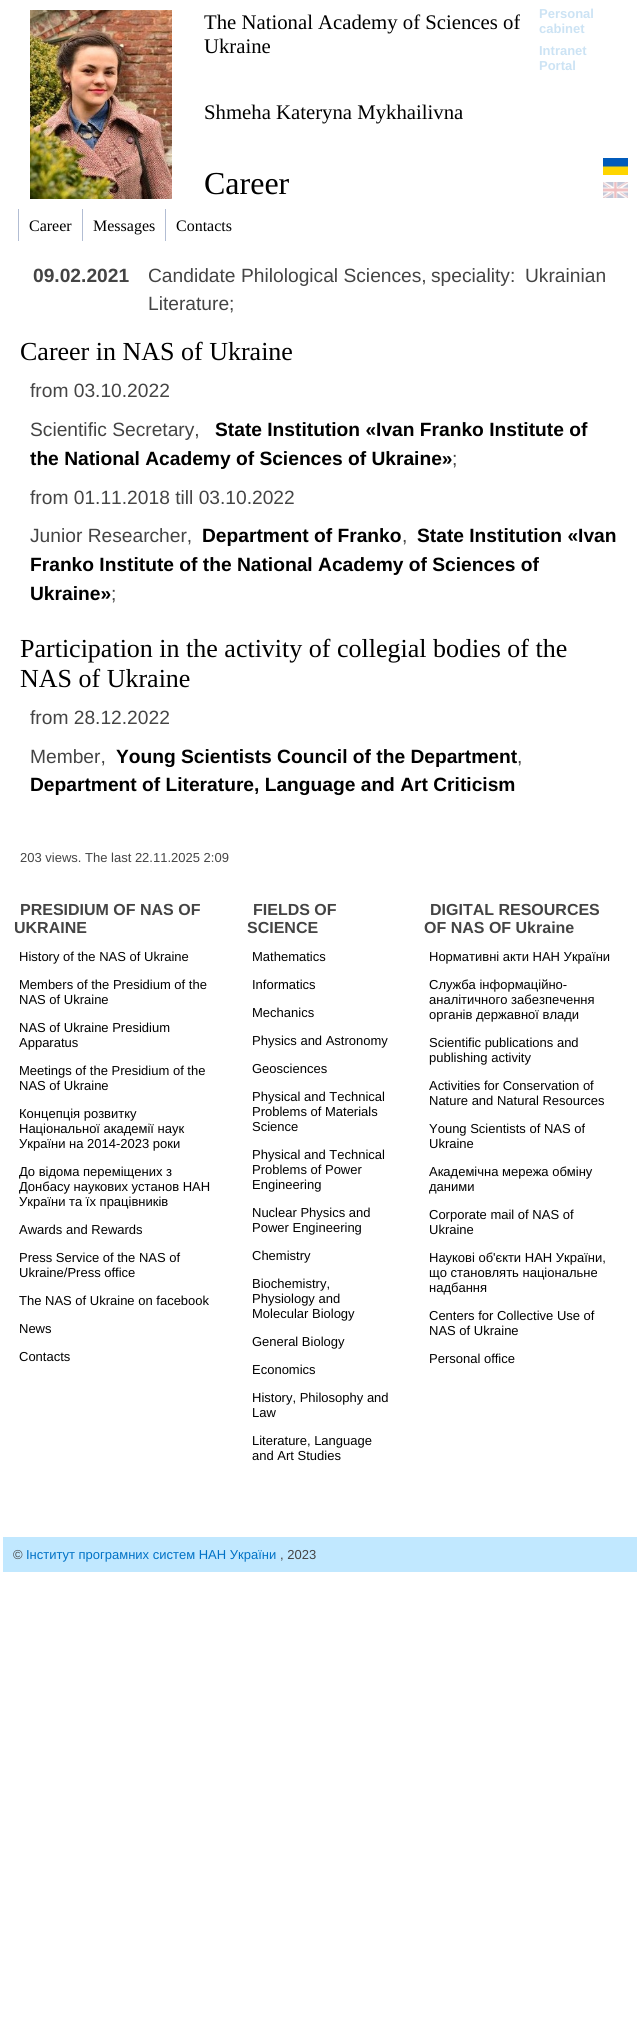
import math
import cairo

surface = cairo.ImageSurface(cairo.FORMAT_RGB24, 637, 2036)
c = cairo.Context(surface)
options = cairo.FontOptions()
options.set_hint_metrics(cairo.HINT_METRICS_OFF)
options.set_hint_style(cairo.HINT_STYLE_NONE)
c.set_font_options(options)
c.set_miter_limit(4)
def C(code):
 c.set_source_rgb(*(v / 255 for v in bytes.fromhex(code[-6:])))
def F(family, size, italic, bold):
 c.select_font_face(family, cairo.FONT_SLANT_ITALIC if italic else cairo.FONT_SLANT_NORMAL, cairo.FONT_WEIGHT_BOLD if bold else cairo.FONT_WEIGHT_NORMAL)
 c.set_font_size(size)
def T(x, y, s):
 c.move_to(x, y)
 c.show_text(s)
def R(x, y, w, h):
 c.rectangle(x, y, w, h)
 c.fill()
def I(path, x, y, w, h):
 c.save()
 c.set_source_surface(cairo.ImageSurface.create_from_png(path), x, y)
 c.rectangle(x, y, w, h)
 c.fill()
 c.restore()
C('ffffff')
c.paint()
I('1.png',30,10,142,189)
F('Liberation Serif',20.75,0,0)
C('000000')
T(204,29,'The National Academy of Sciences of')
T(204,53,'Ukraine')
F('Liberation Sans',13,0,1)
C('cce3f4')
T(539,18,'Personal')
T(539,33,'cabinet')
T(539,55,'Intranet')
T(539,70,'Portal')
F('Liberation Serif',20.75,0,0)
C('000000')
T(204,119,'Shmeha Kateryna Mykhailivna')
I('2.png',603,158,25,17)
I('3.png',603,182,25,16)
F('Liberation Serif',32,0,0)
T(204,194,'Career')
C('b2bdd3')
R(18,209,1,32)
F('Liberation Serif',16,0,0)
C('000000')
T(29,231,'Career')
C('b2bdd3')
R(82,209,1,32)
C('000000')
T(93,231,'Messages')
C('b2bdd3')
R(165,209,1,32)
C('000000')
T(176,231,'Contacts')
F('Liberation Sans',19.2,0,1)
C('444444')
T(33,282,'09.02.2021')
F('Liberation Sans',19.2,0,0)
T(148,282,'Candidate')
T(241,282,'Philological Sciences,')
T(431,282,'speciality:')
T(525,282,'Ukrainian')
T(148,310,'Literature;')
F('Liberation Serif',26,0,0)
C('000000')
T(20,360,'Career in NAS of Ukraine')
F('Liberation Sans',19.2,0,0)
C('444444')
T(30,397,'from 03.10.2022')
T(30,436,'Scientific Secretary,')
F('Liberation Sans',19.2,0,1)
C('000000')
T(215,436,'State Іnstitution «Ivan Franko Institute of')
T(30,465,'the National Academy of Sciences of Ukraine»')
F('Liberation Sans',19.2,0,0)
C('444444')
T(452,465,';')
T(30,504,'from 01.11.2018 till 03.10.2022')
T(30,542,'Junior Researcher,')
F('Liberation Sans',19.2,0,1)
C('000000')
T(202,542,'Department of Franko')
F('Liberation Sans',19.2,0,0)
C('444444')
T(402,542,',')
F('Liberation Sans',19.2,0,1)
C('000000')
T(417,542,'State Іnstitution «Ivan')
T(30,571,'Franko Institute of the National Academy of Sciences of')
T(30,600,'Ukraine»')
F('Liberation Sans',19.2,0,0)
C('444444')
T(111,600,';')
F('Liberation Serif',26,0,0)
C('000000')
T(20,657,'Participation in the activity of collegial bodies of the')
T(20,687,'NAS of Ukraine')
F('Liberation Sans',19.2,0,0)
C('444444')
T(30,724,'from 28.12.2022')
T(30,763,'Member,')
F('Liberation Sans',19.2,0,1)
C('000000')
T(116,763,'Young Scientists Council of the Department')
F('Liberation Sans',19.2,0,0)
C('444444')
T(517,763,',')
F('Liberation Sans',19.2,0,1)
C('000000')
T(30,791,'Department of Literature, Language and Art Criticism')
F('Liberation Sans',13,0,0)
C('444444')
T(20,862,'203 views. The last 22.11.2025 2:09')
F('Liberation Sans',16,0,1)
T(20,915,'PRESIDIUM OF NAS OF')
T(14,933,'UKRAINE')
F('Liberation Sans',13,0,0)
C('000000')
T(19,961,'History of the NAS of Ukraine')
T(19,989,'Members of the Presidium of the')
T(19,1004,'NAS of Ukraine')
T(19,1032,'NAS of Ukraine Presidium')
T(19,1047,'Apparatus')
T(19,1075,'Meetings of the Presidium of the')
T(19,1090,'NAS of Ukraine')
T(19,1118,'Концепція розвитку')
T(19,1133,'Національної академії наук')
T(19,1148,'України на 2014-2023 роки')
T(19,1176,'До відома переміщених з')
T(19,1191,'Донбасу наукових установ НАН')
T(19,1206,'України та їх працівників')
T(19,1234,'Awards and Rewards')
T(19,1262,'Press Service of the NAS of')
T(19,1277,'Ukraine/Press office')
T(19,1305,'The NAS of Ukraine on facebook')
T(19,1333,'News')
T(19,1361,'Сontacts')
F('Liberation Sans',16,0,1)
C('444444')
T(253,915,'FIELDS OF')
T(247,933,'SCIENCE')
F('Liberation Sans',13,0,0)
C('000000')
T(252,961,'Mathematics')
T(252,989,'Informatics')
T(252,1017,'Mechanics')
T(252,1045,'Physics and Astronomy')
T(252,1073,'Geosciences')
T(252,1101,'Physical and Technical')
T(252,1116,'Problems of Materials')
T(252,1131,'Science')
T(252,1159,'Physical and Technical')
T(252,1174,'Problems of Power')
T(252,1189,'Engineering')
T(252,1217,'Nuclear Physics and')
T(252,1232,'Power Engineering')
T(252,1260,'Chemistry')
T(252,1288,'Biochemistry,')
T(252,1303,'Physiology and')
T(252,1318,'Molecular Biology')
T(252,1346,'General Biology')
T(252,1374,'Economics')
T(252,1402,'History, Philosophy and')
T(252,1417,'Law')
T(252,1445,'Literature, Language')
T(252,1460,'and Art Studies')
F('Liberation Sans',16,0,1)
C('444444')
T(430,915,'DIGITAL RESOURCES')
T(424,933,'OF NAS OF Ukraine')
F('Liberation Sans',13,0,0)
C('000000')
T(429,961,'Нормативні акти НАН України')
T(429,989,'Служба інформаційно-')
T(429,1004,'аналітичного забезпечення')
T(429,1019,'органів державної влади')
T(429,1047,'Scientific publications and')
T(429,1062,'publishing activity')
T(429,1090,'Activities for Conservation of')
T(429,1105,'Nature and Natural Resources')
T(429,1133,'Young Scientists of NAS of')
T(429,1148,'Ukraine')
T(429,1176,'Академічна мережа обміну')
T(429,1191,'даними')
T(429,1219,'Corporate mail of NAS of')
T(429,1234,'Ukraine')
T(429,1262,'Наукові об\'єкти НАН України,')
T(429,1277,'що становлять національне')
T(429,1292,'надбання')
T(429,1320,'Centers for Collective Use of')
T(429,1335,'NAS of Ukraine')
T(429,1363,'Personal office')
C('c1e8ff')
R(3,1537,634,35)
C('444444')
T(13,1559,'©')
C('0072c6')
T(26,1559,'Інститут програмних систем НАН України')
C('444444')
T(280,1559,', 2023')
surface.write_to_png('o.png')
